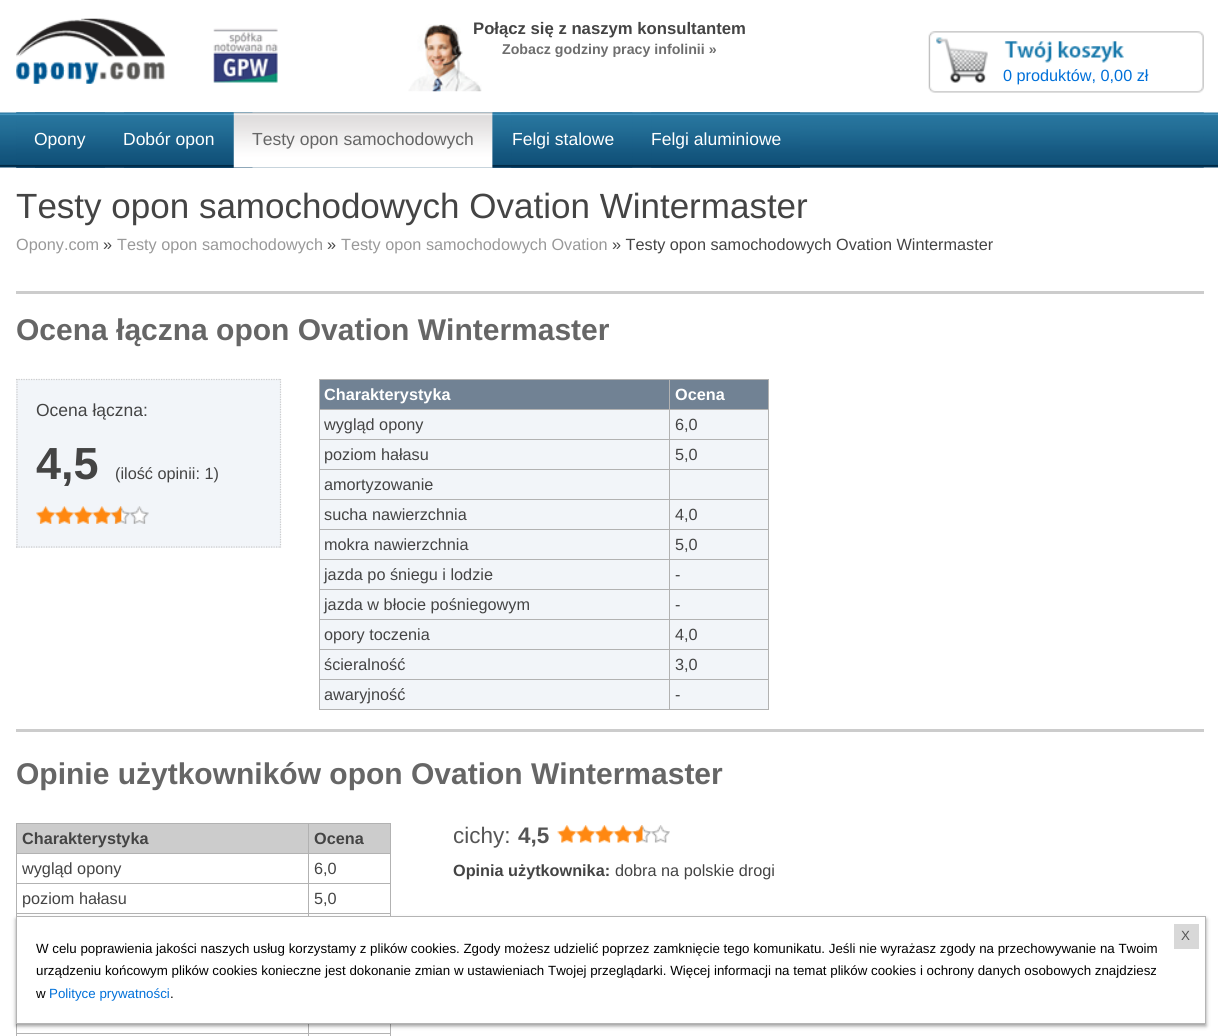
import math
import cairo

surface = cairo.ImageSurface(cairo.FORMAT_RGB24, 1218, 1036)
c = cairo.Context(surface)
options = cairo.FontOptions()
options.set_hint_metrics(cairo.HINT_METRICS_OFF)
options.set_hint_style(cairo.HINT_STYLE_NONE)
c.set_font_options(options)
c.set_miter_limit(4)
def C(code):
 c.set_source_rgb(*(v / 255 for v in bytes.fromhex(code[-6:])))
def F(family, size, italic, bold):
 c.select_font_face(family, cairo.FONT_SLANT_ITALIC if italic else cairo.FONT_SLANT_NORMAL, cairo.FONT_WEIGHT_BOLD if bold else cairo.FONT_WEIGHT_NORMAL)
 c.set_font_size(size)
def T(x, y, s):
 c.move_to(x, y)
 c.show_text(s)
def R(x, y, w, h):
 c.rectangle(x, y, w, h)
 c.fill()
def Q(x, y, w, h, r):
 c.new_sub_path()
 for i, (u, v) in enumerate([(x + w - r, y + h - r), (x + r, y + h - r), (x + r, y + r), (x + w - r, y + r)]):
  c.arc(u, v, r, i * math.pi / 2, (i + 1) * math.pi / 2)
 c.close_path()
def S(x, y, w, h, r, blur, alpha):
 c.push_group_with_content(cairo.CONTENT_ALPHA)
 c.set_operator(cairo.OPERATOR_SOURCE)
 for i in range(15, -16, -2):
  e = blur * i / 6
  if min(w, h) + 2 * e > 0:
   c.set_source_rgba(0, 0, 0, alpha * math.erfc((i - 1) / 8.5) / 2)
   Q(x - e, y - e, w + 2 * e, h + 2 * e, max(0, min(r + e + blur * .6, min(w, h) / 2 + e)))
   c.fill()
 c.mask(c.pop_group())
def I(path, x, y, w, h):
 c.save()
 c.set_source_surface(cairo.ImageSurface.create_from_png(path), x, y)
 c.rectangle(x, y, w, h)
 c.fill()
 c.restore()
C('ffffff')
c.paint()
I('1.png',16,18,149,66)
I('2.png',213,28,65,55)
I('3.png',408,24,74,68)
F('Liberation Sans',16.7,0,1)
C('444444')
T(473,34,'Połącz się z naszym konsultantem')
F('Liberation Sans',14.2,0,1)
C('6e6e6e')
T(502,54,'Zobacz godziny pracy infolinii »')
I('4.png',928,31,276,62)
F('Liberation Sans',16.25,0,0)
C('0070d9')
T(1003,81,'0 produktów, 0,00 zł')
I('5.png',0,112,1218,56)
I('6.png',16,112,1188,56)
I('7.png',16,112,89,56)
I('8.png',35,112,70,56)
F('Liberation Sans',17.5,0,0)
C('ffffff')
T(34,145,'Opony')
I('9.png',105,112,129,56)
I('10.png',124,112,110,56)
T(123,145,'Dobór opon')
I('11.png',234,112,259,56)
I('12.png',233,112,260,56)
I('13.png',252,112,241,56)
C('666666')
T(252,145,'Testy opon samochodowych')
I('14.png',492,112,141,56)
I('15.png',511,112,122,56)
C('ffffff')
T(512,145,'Felgi stalowe')
I('16.png',632,112,168,56)
I('17.png',651,112,149,56)
T(651,145,'Felgi aluminiowe')
F('Liberation Sans',35,0,0)
C('444444')
T(16,218,'Testy opon samochodowych Ovation Wintermaster')
F('Liberation Sans',16.25,0,0)
C('999999')
T(16,250,'Opony.com')
C('444444')
T(103,250,'»')
C('999999')
T(117,250,'Testy opon samochodowych')
C('444444')
T(327,250,'»')
C('999999')
T(341,250,'Testy opon samochodowych Ovation')
C('444444')
T(612,250,'» Testy opon samochodowych Ovation Wintermaster')
C('cccccc')
R(16,291,1188,3)
R(16,729,1188,3)
F('Liberation Sans',30,0,1)
C('666666')
T(16,340,'Ocena łączna opon Ovation Wintermaster')
C('f2f5f9')
R(16,379,265,169)
c.new_path()
c.move_to(16,379.5)
c.line_to(281,379.5)
C('cccccc')
c.set_line_width(1.2)
c.set_dash([1.25,1.25])
c.stroke()
c.new_path()
c.move_to(280.5,379)
c.line_to(280.5,547.5)
c.stroke()
c.new_path()
c.move_to(16,547)
c.line_to(281,547)
c.stroke()
c.new_path()
c.move_to(17,379)
c.line_to(17,547.5)
c.stroke()
F('Liberation Sans',17.5,0,0)
C('444444')
T(36,416,'Ocena łączna:')
F('Liberation Sans',45,0,1)
T(36,479,'4,5')
F('Liberation Sans',16.25,0,0)
T(115,479,'(ilość opinii: 1)')
I('18.png',36,506,19,18)
I('19.png',55,506,19,18)
I('20.png',73,506,20,18)
I('21.png',92,506,20,18)
I('22.png',111,506,19,18)
I('23.png',130,506,19,18)
C('b2b2b2')
R(319,379,450,1)
R(768,379,1,331)
R(319,709,450,1)
R(319,379,1,331)
C('718294')
R(320,380,349,29)
F('Liberation Sans',16.25,0,1)
C('ffffff')
T(324,400,'Charakterystyka')
C('718294')
R(670,380,98,29)
C('b2b2b2')
R(669,409,100,1)
R(669,439,100,1)
R(669,469,100,1)
R(669,499,100,1)
R(669,529,100,1)
R(669,559,100,1)
R(669,589,100,1)
R(669,619,100,1)
R(669,649,100,1)
R(669,679,100,1)
R(669,679,1,31)
R(319,679,351,1)
R(669,649,1,31)
R(319,649,351,1)
R(669,619,1,31)
R(319,619,351,1)
R(669,589,1,31)
R(319,589,351,1)
R(669,559,1,31)
R(319,559,351,1)
R(669,529,1,31)
R(319,529,351,1)
R(669,499,1,31)
R(319,499,351,1)
R(669,469,1,31)
R(319,469,351,1)
R(669,439,1,31)
R(319,439,351,1)
R(669,409,1,31)
R(319,409,351,1)
R(669,379,1,31)
C('ffffff')
T(675,400,'Ocena')
C('f2f5f9')
R(320,410,349,29)
F('Liberation Sans',16.25,0,0)
C('444444')
T(324,430,'wygląd opony')
C('f2f5f9')
R(670,410,98,29)
C('444444')
T(675,430,'6,0')
C('f2f5f9')
R(320,440,349,29)
C('444444')
T(324,460,'poziom hałasu')
C('f2f5f9')
R(670,440,98,29)
C('444444')
T(675,460,'5,0')
C('f2f5f9')
R(320,470,349,29)
C('444444')
T(324,490,'amortyzowanie')
C('f2f5f9')
R(670,470,98,29)
R(320,500,349,29)
C('444444')
T(324,520,'sucha nawierzchnia')
C('f2f5f9')
R(670,500,98,29)
C('444444')
T(675,520,'4,0')
C('f2f5f9')
R(320,530,349,29)
C('444444')
T(324,550,'mokra nawierzchnia')
C('f2f5f9')
R(670,530,98,29)
C('444444')
T(675,550,'5,0')
C('f2f5f9')
R(320,560,349,29)
C('444444')
T(324,580,'jazda po śniegu i lodzie')
C('f2f5f9')
R(670,560,98,29)
C('444444')
T(675,580,'-')
C('f2f5f9')
R(320,590,349,29)
C('444444')
T(324,610,'jazda w błocie pośniegowym')
C('f2f5f9')
R(670,590,98,29)
C('444444')
T(675,610,'-')
C('f2f5f9')
R(320,620,349,29)
C('444444')
T(324,640,'opory toczenia')
C('f2f5f9')
R(670,620,98,29)
C('444444')
T(675,640,'4,0')
C('f2f5f9')
R(320,650,349,29)
C('444444')
T(324,670,'ścieralność')
C('f2f5f9')
R(670,650,98,29)
C('444444')
T(675,670,'3,0')
C('f2f5f9')
R(320,680,349,29)
C('444444')
T(324,700,'awaryjność')
C('f2f5f9')
R(670,680,98,29)
C('444444')
T(675,700,'-')
F('Liberation Sans',30,0,1)
C('666666')
T(16,784,'Opinie użytkowników opon Ovation Wintermaster')
C('b2b2b2')
R(16,823,375,1)
R(390,823,1,213)
R(16,823,1,213)
C('cccccc')
R(17,824,291,29)
F('Liberation Sans',16.25,0,1)
C('444444')
T(22,844,'Charakterystyka')
C('cccccc')
R(309,824,81,29)
C('b2b2b2')
R(308,853,83,1)
R(308,883,83,1)
R(308,913,83,1)
R(308,913,1,3)
R(16,913,293,1)
R(308,883,1,31)
R(16,883,293,1)
R(308,853,1,31)
R(16,853,293,1)
R(308,823,1,31)
C('444444')
T(314,844,'Ocena')
F('Liberation Sans',16.25,0,0)
T(22,874,'wygląd opony')
T(314,874,'6,0')
T(22,904,'poziom hałasu')
T(314,904,'5,0')
C('b2b2b2')
R(308,1033,83,1)
R(308,1033,1,3)
R(16,1033,293,1)
R(308,1024,1,10)
F('Liberation Sans',22.5,0,0)
C('555555')
T(453,843,'cichy:')
F('Liberation Sans',22.5,0,1)
T(518,843,'4,5')
I('24.png',557,825,20,18)
I('25.png',576,825,19,18)
I('26.png',595,825,19,18)
I('27.png',613,825,20,18)
I('28.png',632,825,20,18)
I('29.png',651,825,19,18)
F('Liberation Sans',16.25,0,1)
C('444444')
T(453,876,'Opinia użytkownika:')
F('Liberation Sans',16.25,0,0)
T(615,876,'dobra na polskie drogi')
C('000000')
S(16,919,1190,107,0,2,.4)
C('ffffff')
c.rectangle(16.5,916.5,1189,107)
c.fill_preserve()
C('b4b4b4')
c.set_line_width(1)
c.set_dash([])
c.stroke()
C('d8d8d8')
R(1174,924,25,25)
F('Liberation Sans',13.33,0,0)
C('555555')
T(1181,940,'X')
C('000000')
T(36,953,'W celu poprawienia jakości naszych usług korzystamy z plików cookies. Zgody możesz udzielić poprzez zamknięcie tego komunikatu. Jeśli nie wyrażasz zgody na przechowywanie na Twoim')
T(36,975,'urządzeniu końcowym plików cookies konieczne jest dokonanie zmian w ustawieniach Twojej przeglądarki. Więcej informacji na temat plików cookies i ochrony danych osobowych znajdziesz')
T(36,998,'w')
C('0070d9')
T(49,998,'Polityce prywatności')
C('000000')
T(170,998,'.')
surface.write_to_png('o.png')
